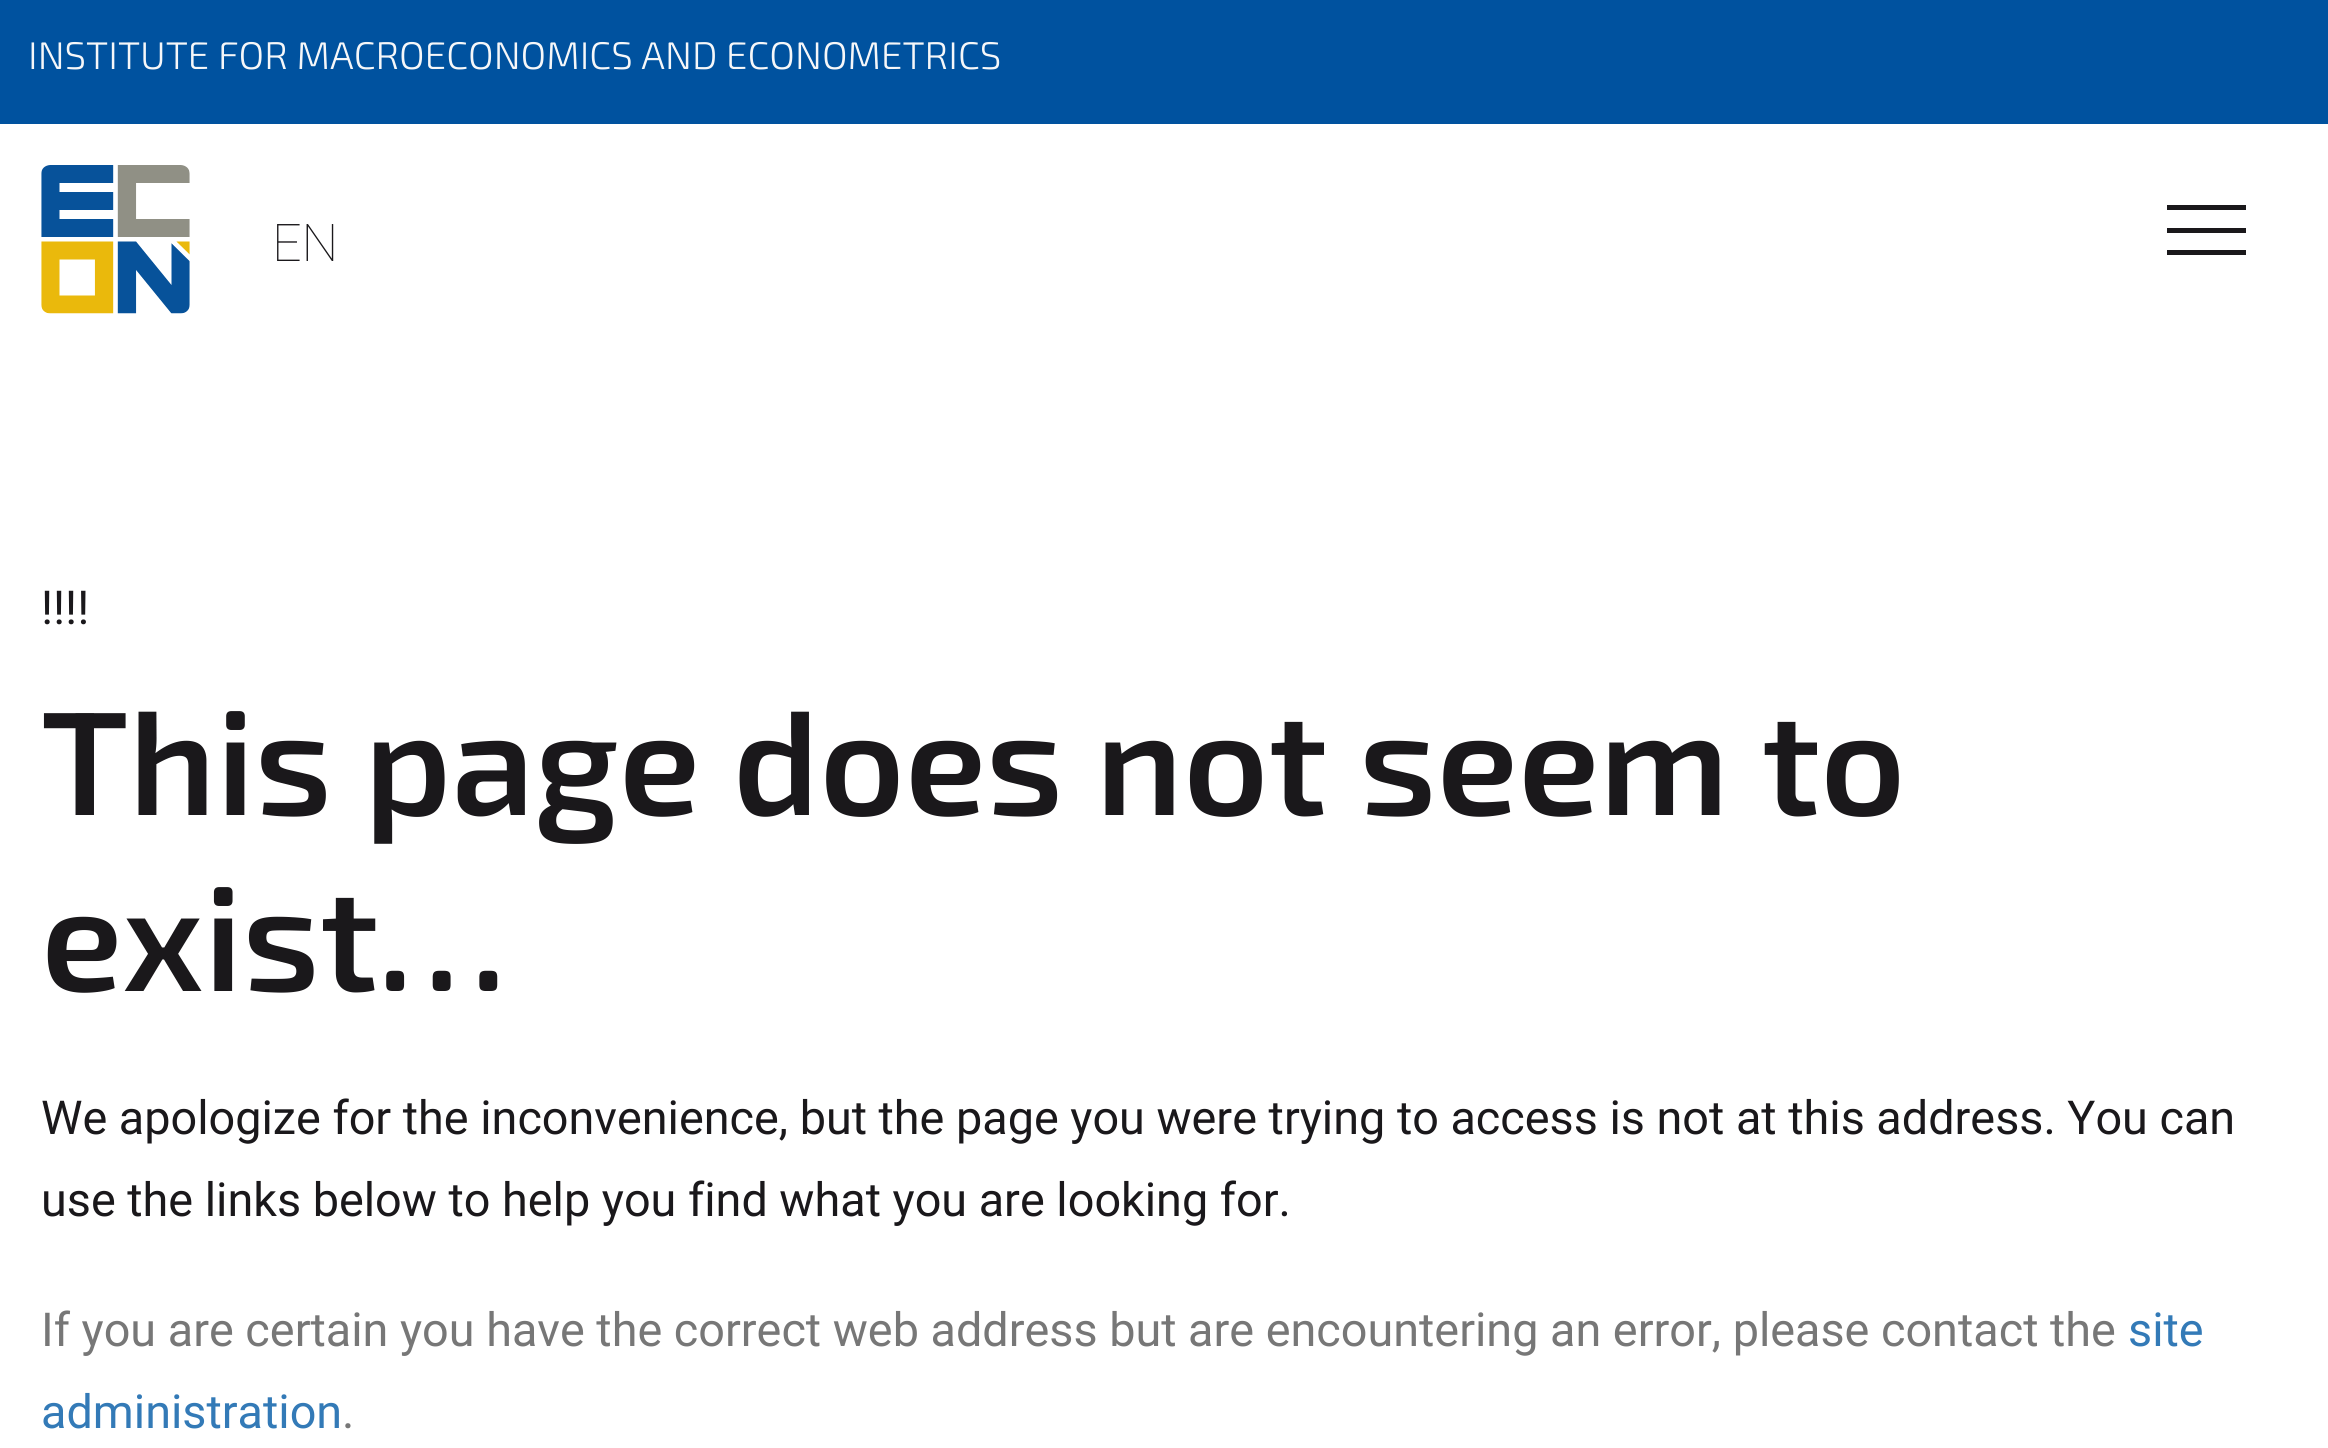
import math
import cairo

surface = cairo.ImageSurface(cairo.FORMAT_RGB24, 2328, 1448)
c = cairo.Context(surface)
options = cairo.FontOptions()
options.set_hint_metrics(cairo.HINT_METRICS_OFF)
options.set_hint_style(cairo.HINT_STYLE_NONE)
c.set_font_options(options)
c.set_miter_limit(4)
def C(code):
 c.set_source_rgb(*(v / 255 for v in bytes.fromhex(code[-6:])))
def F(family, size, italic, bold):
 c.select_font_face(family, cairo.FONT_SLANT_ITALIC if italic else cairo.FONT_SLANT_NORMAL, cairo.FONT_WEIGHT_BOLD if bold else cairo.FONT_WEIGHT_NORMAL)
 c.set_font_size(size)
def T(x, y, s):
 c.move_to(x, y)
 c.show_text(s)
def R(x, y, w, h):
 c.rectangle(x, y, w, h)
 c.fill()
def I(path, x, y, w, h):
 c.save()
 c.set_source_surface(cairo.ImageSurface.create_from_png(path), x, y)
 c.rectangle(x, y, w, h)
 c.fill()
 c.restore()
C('ffffff')
c.paint()
C('00529f')
R(0,0,2328,124)
F('Exo 2 Light',38.5,0,0)
C('f6f7f9')
T(28,69,'INSTITUTE FOR MACROECONOMICS AND ECONOMETRICS')
I('1.png',41,165,149,149)
F('Roboto Thin',52,0,0)
C('1a181b')
T(272,261,'EN')
c.new_path()
c.move_to(2167,255)
c.line_to(2246,255)
c.line_to(2246,250)
c.line_to(2167,250)
c.close_path()
c.move_to(2167,233)
c.line_to(2246,233)
c.line_to(2246,228)
c.line_to(2167,228)
c.close_path()
c.move_to(2167,205)
c.line_to(2167,210)
c.line_to(2246,210)
c.line_to(2246,205)
c.close_path()
c.fill()
F('Roboto',46.75,0,0)
T(41,624,'!!!!')
F('Exo 2 SemiBold',147.6,0,0)
T(41,815,'This page does not seem to')
T(41,991,'exist…')
F('Roboto',46.75,0,0)
T(41,1134,'We apologize for the inconvenience, but the page you were trying to access is not at this address. You can')
T(41,1216,'use the links below to help you find what you are looking for.')
C('777777')
T(41,1346,'If you are certain you have the correct web address but are encountering an error, please contact the')
C('337ab7')
T(2128,1346,'site')
T(41,1428,'administration')
C('777777')
T(342,1428,'.')
surface.write_to_png('o.png')
